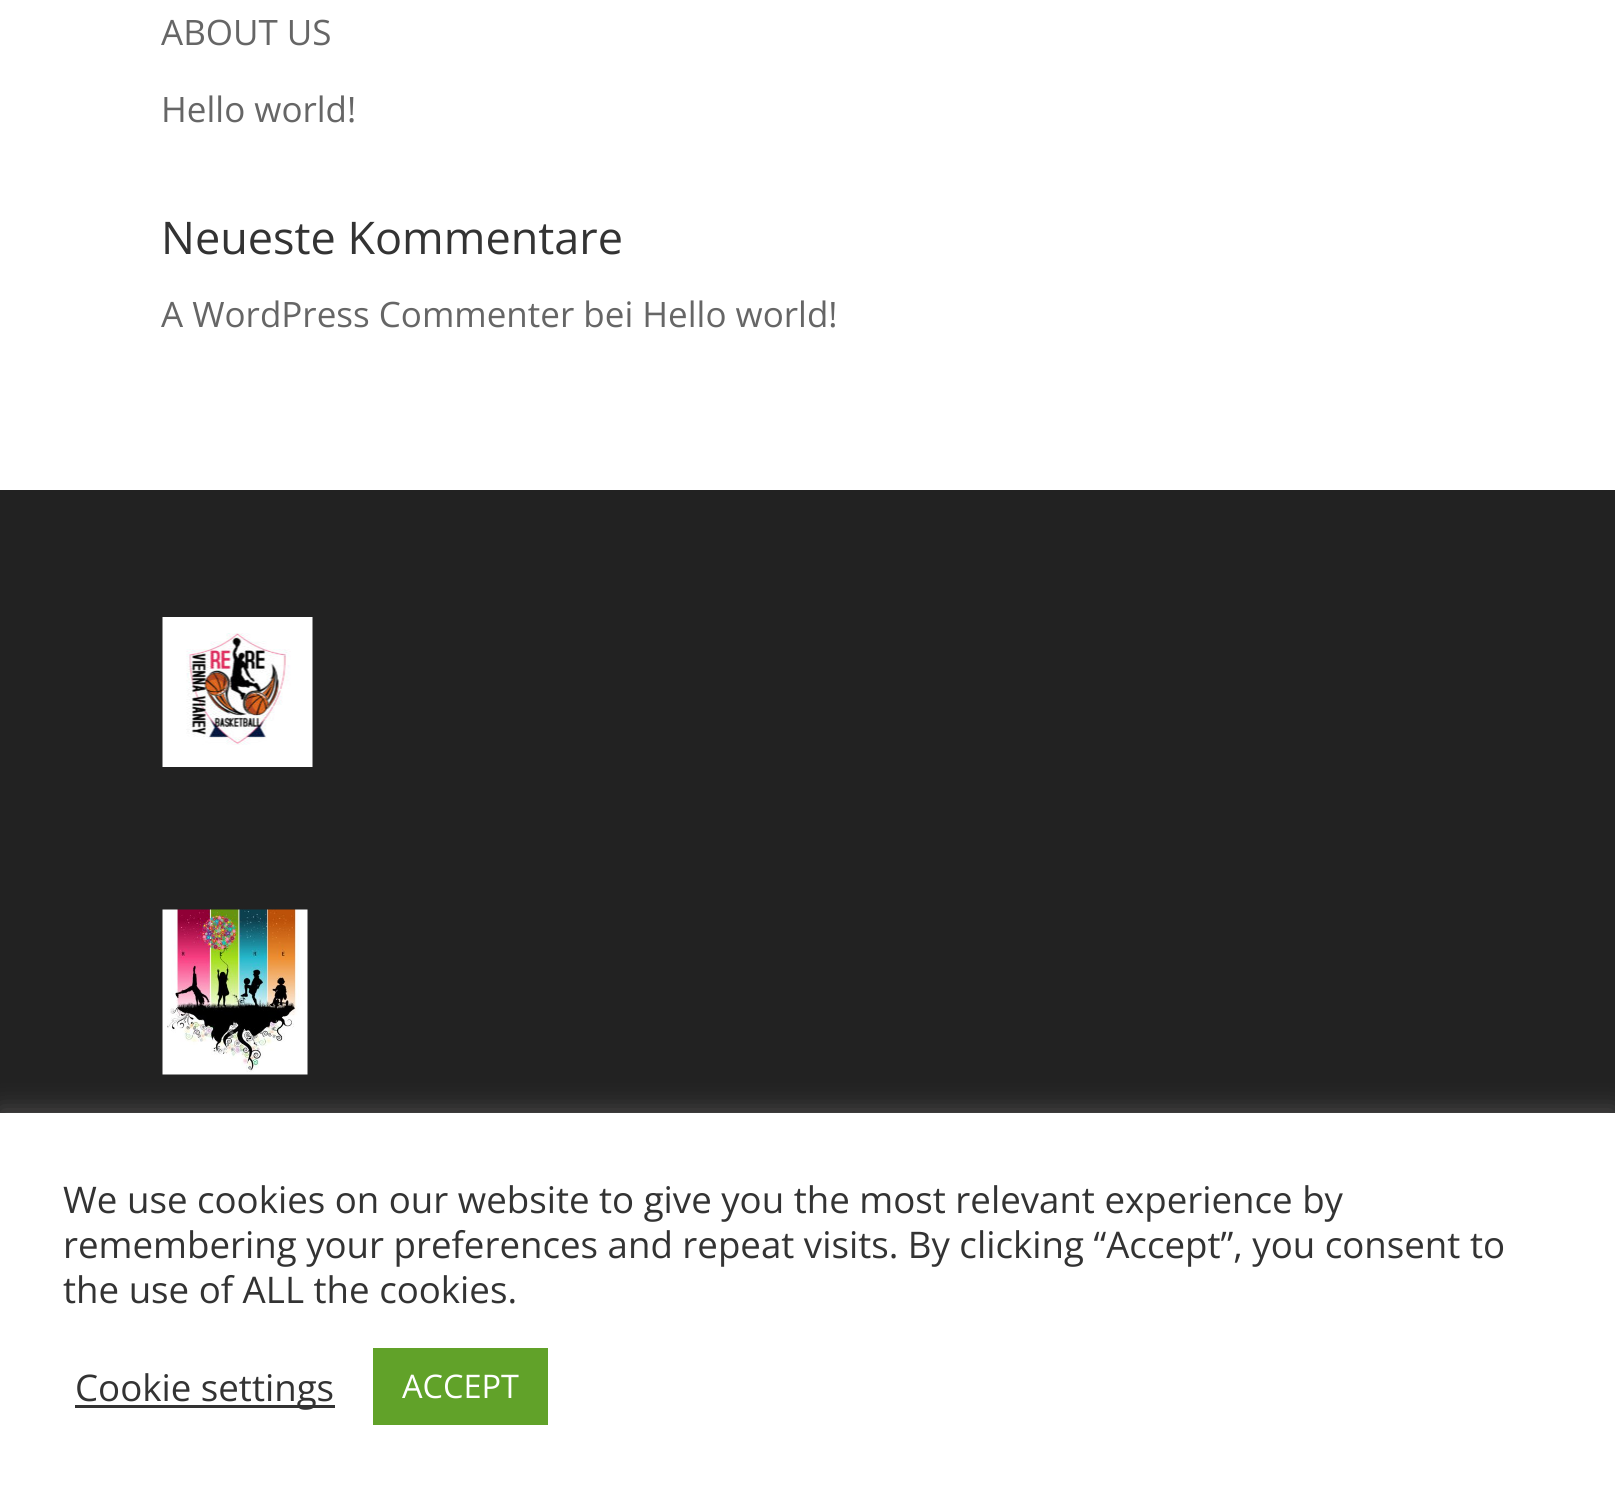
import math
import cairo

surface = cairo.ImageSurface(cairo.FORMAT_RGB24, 1615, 1500)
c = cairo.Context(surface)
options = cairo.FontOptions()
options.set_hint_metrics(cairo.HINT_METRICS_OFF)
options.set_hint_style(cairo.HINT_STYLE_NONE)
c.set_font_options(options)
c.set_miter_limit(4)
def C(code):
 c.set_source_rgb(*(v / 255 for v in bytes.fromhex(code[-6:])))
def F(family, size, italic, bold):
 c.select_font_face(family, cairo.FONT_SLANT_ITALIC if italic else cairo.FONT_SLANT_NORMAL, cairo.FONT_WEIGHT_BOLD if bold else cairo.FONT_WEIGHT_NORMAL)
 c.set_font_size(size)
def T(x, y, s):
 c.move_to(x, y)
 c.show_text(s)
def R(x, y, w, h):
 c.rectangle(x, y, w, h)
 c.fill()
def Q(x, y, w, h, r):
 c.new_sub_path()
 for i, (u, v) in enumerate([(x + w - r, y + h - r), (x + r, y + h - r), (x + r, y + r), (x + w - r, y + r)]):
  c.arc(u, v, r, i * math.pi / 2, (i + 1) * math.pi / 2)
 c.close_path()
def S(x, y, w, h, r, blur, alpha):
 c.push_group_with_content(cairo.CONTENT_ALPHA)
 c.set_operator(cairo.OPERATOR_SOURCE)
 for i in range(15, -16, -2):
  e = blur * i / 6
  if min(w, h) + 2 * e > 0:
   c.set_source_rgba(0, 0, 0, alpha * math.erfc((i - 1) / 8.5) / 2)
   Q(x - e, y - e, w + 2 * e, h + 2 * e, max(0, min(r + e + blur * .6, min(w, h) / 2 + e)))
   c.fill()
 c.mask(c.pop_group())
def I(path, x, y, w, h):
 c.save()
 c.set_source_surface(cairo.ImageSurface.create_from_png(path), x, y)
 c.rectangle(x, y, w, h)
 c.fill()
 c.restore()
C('ffffff')
c.paint()
F('Open Sans',35,0,0)
C('666666')
T(161,45,'ABOUT US')
T(161,122,'Hello world!')
F('Open Sans',45,0,0)
C('333333')
T(161,254,'Neueste Kommentare')
F('Open Sans',35,0,0)
C('666666')
T(161,327,'A WordPress Commenter bei Hello world!')
C('222222')
R(0,490,1615,623)
I('1.png',162,617,151,150)
I('2.png',162,909,146,166)
C('acabab')
S(0,1110,1615,388,0,12.5,.3)
C('ffffff')
R(0,1113,1615,387)
F('Open Sans',36.65,0,0)
C('333333')
T(63,1213,'We use cookies on our website to give you the most relevant experience by')
T(63,1258,'remembering your preferences and repeat visits. By clicking “Accept”, you consent to')
T(63,1303,'the use of ALL the cookies.')
R(75,1405,260,3)
T(75,1401,'Cookie settings')
C('61a229')
R(373,1348,175,77)
F('Open Sans',32.5,0,0)
C('ffffff')
T(402,1398,'ACCEPT')
surface.write_to_png('o.png')
